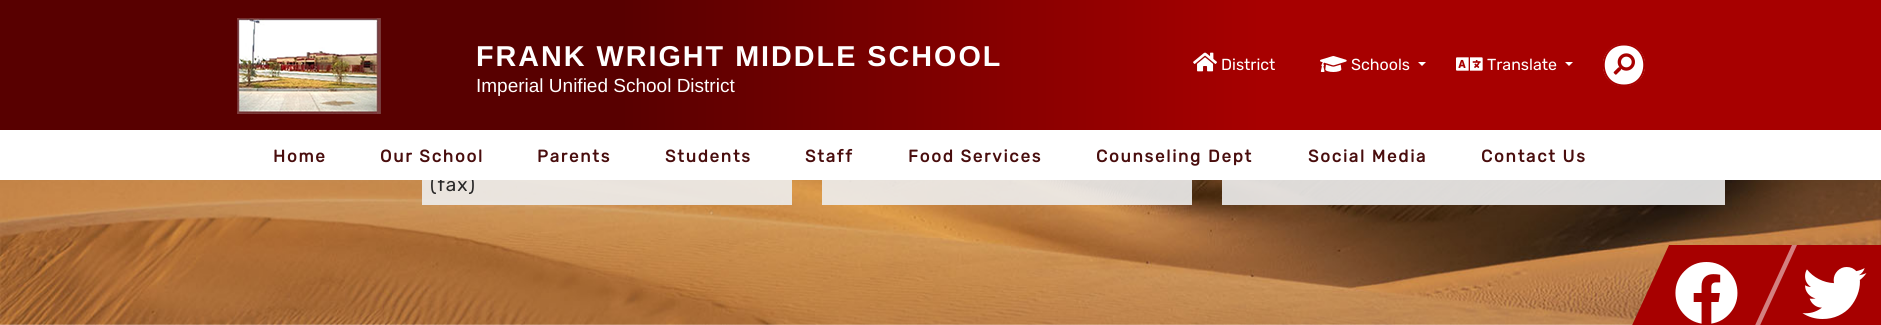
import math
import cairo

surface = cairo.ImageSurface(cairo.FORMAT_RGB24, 1881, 325)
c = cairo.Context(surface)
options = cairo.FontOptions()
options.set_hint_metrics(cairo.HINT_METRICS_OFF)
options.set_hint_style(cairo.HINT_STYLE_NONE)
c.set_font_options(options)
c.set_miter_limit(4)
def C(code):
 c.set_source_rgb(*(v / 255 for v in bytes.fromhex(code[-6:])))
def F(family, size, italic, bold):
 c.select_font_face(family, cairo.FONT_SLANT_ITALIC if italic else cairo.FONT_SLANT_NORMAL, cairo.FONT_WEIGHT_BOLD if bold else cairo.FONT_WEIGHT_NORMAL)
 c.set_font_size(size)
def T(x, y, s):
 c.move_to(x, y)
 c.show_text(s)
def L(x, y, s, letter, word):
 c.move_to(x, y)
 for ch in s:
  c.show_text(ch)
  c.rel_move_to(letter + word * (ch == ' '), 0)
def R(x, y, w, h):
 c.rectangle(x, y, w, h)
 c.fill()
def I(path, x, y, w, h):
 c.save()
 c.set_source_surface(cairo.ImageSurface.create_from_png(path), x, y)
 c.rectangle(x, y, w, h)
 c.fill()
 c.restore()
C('ffffff')
c.paint()
gradient = cairo.LinearGradient(0,65,1881,65)
gradient.add_color_stop_rgba(0,0.345,0,0,1)
gradient.add_color_stop_rgba(.33,0.345,0,0,1)
gradient.add_color_stop_rgba(.67,0.655,0,0,1)
gradient.add_color_stop_rgba(1,0.655,0,0,1)
c.set_source(gradient)
R(0,0,1881,130)
I('1.png',237,18,144,96)
F('Liberation Sans',28.75,0,1)
C('ffffff')
L(476,66,'FRANK WRIGHT MIDDLE SCHOOL',2,0)
F('Liberation Sans',19,0,0)
T(476,92,'Imperial Unified School District')
I('2.png',1193,52,24,20)
F('Rubik Light',16,0,0)
T(1221,70,'District')
I('3.png',1320,56,27,16)
T(1351,70,'Schools')
c.new_path()
c.move_to(1418,62)
c.line_to(1426,62)
c.line_to(1422,66)
c.close_path()
c.fill()
I('4.png',1456,57,27,14)
T(1487,70,'Translate')
c.new_path()
c.move_to(1565,62)
c.line_to(1573,62)
c.line_to(1569,66)
c.close_path()
c.fill()
c.new_path()
c.move_to(1624,44)
c.curve_to(1596,44,1596,86,1624,86)
c.curve_to(1652,86,1652,44,1624,44)
c.close_path()
c.fill()
c.new_path()
c.move_to(1624,44.5)
c.curve_to(1597,44.5,1597,85.5,1624,85.5)
c.curve_to(1651,85.5,1651,44.5,1624,44.5)
c.close_path()
C('a70000')
c.stroke()
I('5.png',1613,53,22,22)
I('6.png',0,180,1881,145)
c.set_source_rgba(0.933,0.933,0.933,0.9)
R(422,180,370,25)
F('Rubik Light',19,0,0)
C('272626')
L(430,191,'(fax)',1,0)
C('ffffff')
R(431,176,43,4)
F('Rubik',17,0,1)
C('490d0d')
L(273,162,'Home',1.75,0)
L(380,162,'Our School',1.75,0)
L(537,162,'Parents',1.75,0)
L(665,162,'Students',1.75,0)
L(805,162,'Staff',1.75,0)
L(908,162,'Food Services',1.75,0)
L(1096,162,'Counseling Dept',1.75,0)
L(1308,162,'Social Media',1.75,0)
L(1481,162,'Contact Us',1.75,0)
c.set_source_rgba(0.933,0.933,0.933,0.9)
R(822,180,370,25)
R(1222,180,503,25)
C('a70000')
c.new_path()
c.move_to(1669,245)
c.line_to(1799,245)
c.line_to(1753,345)
c.line_to(1623,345)
c.close_path()
c.fill()
c.set_source_rgba(1,1,1,0.5)
c.new_path()
c.move_to(1792,245)
c.line_to(1799,245)
c.line_to(1753,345)
c.line_to(1746,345)
c.close_path()
c.fill()
I('7.png',1675,262,63,62)
C('a70000')
c.new_path()
c.move_to(1797,245)
c.line_to(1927,245)
c.line_to(1881,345)
c.line_to(1751,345)
c.close_path()
c.fill()
I('8.png',1802,267,65,52)
surface.write_to_png('o.png')
